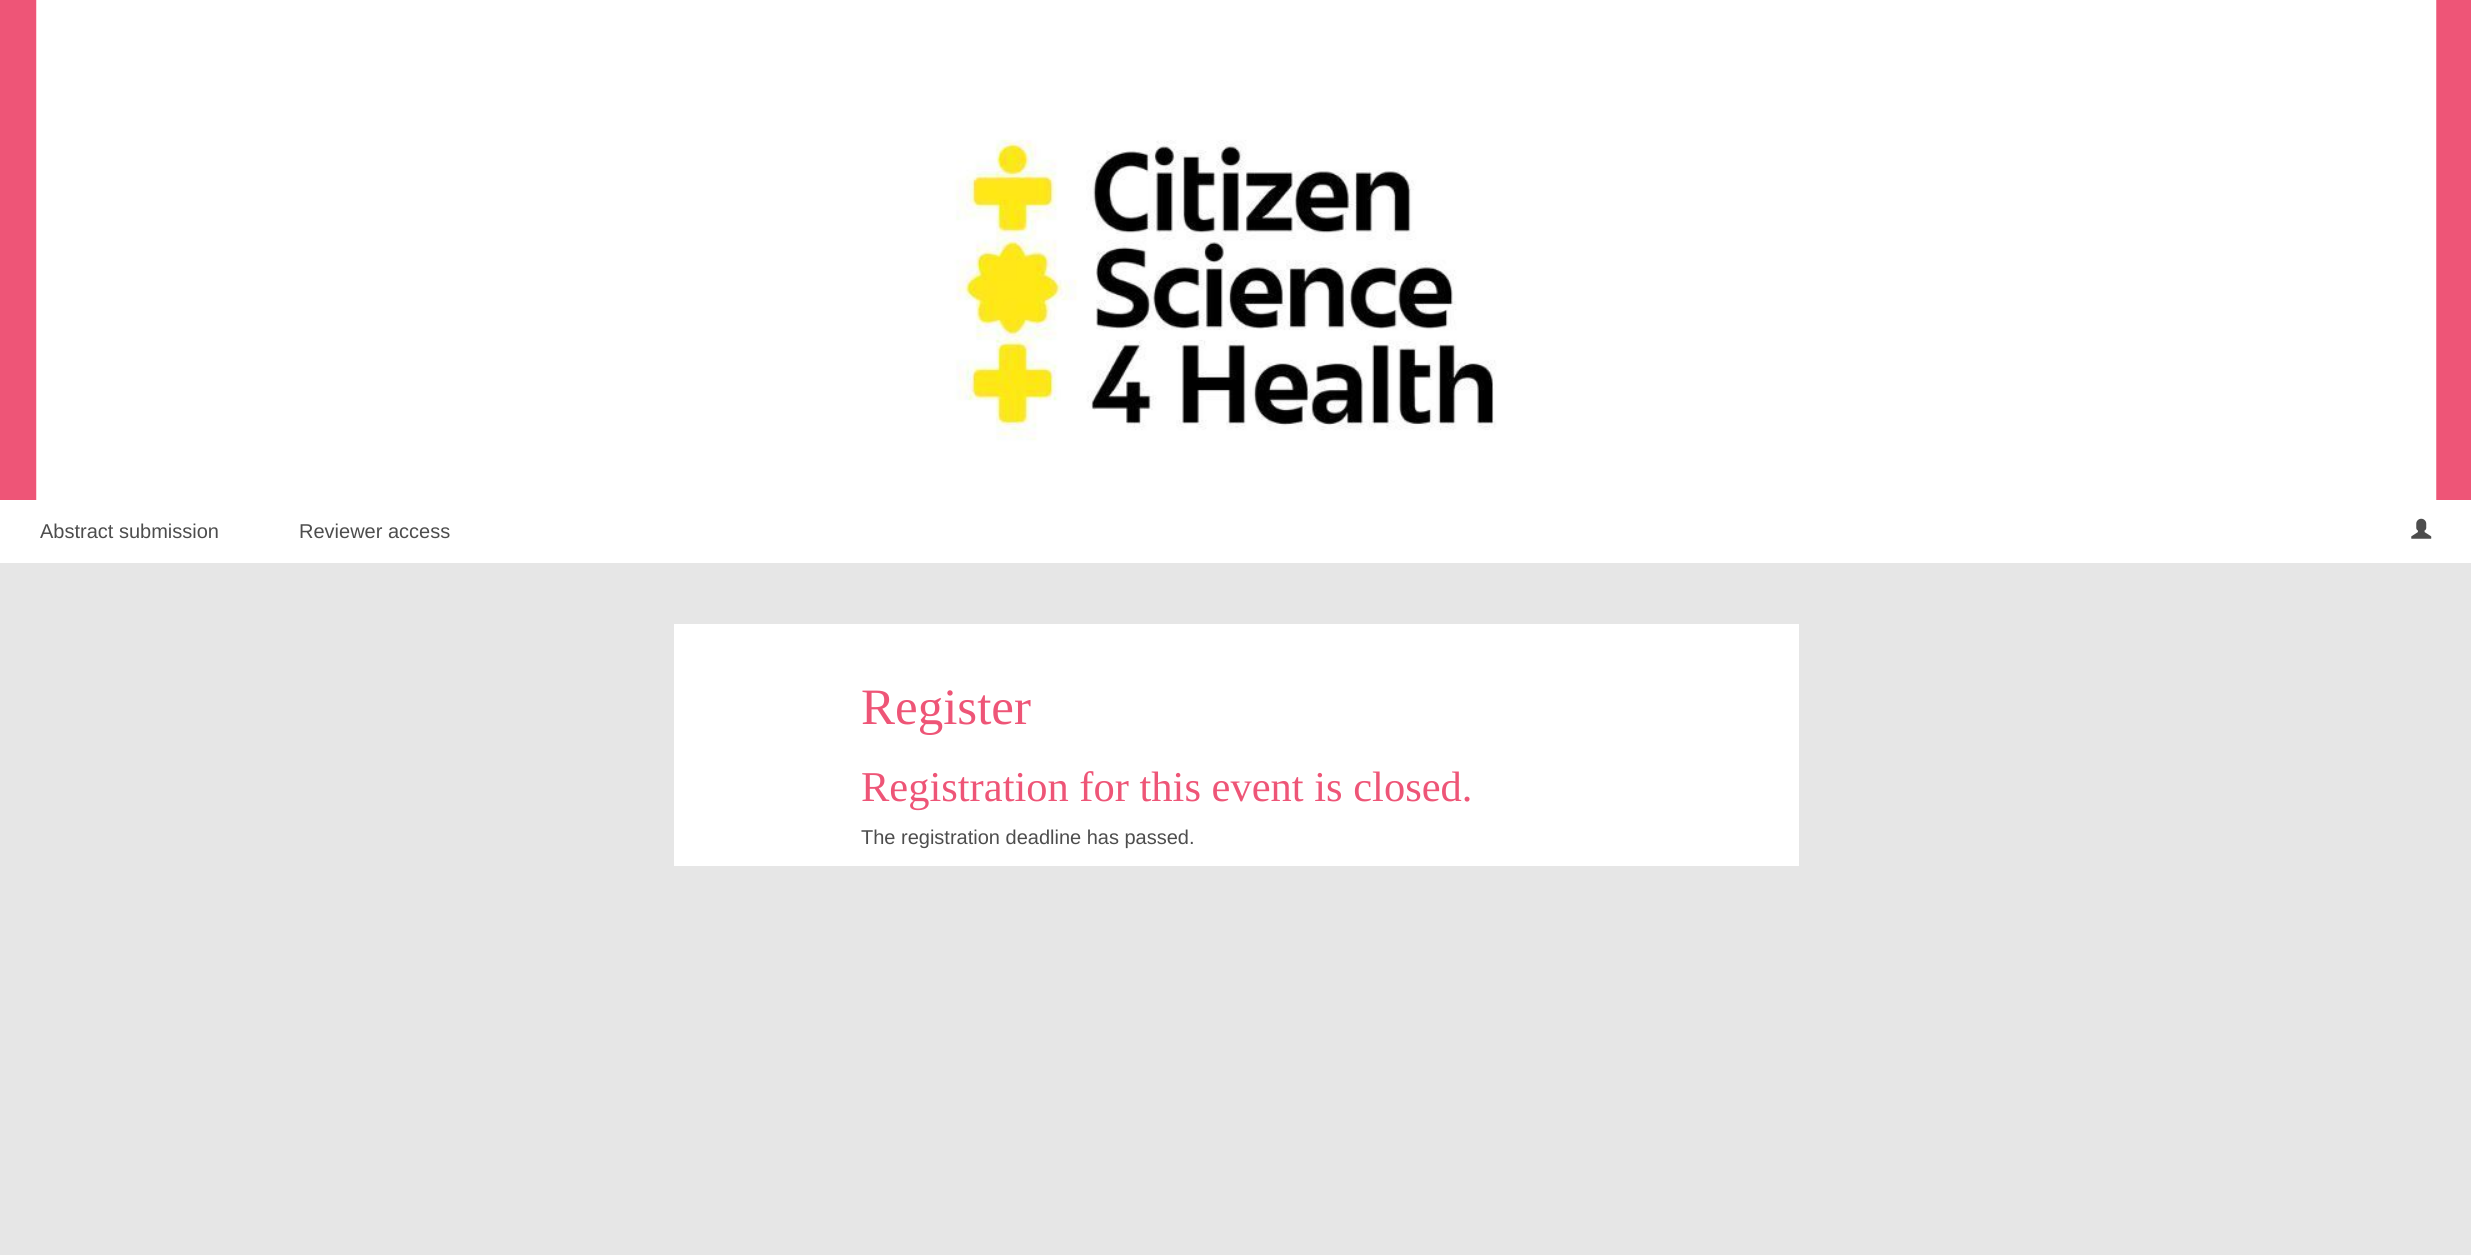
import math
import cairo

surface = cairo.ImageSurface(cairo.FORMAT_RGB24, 2471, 1255)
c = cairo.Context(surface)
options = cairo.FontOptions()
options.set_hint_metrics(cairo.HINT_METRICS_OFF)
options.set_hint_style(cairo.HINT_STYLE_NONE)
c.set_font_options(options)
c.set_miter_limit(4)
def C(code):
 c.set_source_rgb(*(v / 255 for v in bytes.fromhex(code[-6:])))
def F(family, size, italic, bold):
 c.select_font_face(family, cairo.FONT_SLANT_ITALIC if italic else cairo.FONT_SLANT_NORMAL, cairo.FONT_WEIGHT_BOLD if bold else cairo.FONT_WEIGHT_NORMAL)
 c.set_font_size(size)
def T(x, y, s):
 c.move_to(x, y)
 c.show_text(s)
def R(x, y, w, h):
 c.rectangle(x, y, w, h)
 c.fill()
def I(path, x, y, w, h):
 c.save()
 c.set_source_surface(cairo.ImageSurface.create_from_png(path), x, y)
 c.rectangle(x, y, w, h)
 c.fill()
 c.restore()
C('e6e6e6')
c.paint()
C('ee5577')
R(0,0,2471,500)
I('1.png',36,0,2401,500)
C('ffffff')
R(0,500,2471,63)
F('Liberation Sans',20,0,0)
C('4d4d4d')
T(40,538,'Abstract submission')
T(299,538,'Reviewer access')
I('2.png',2411,518,21,21)
C('ffffff')
R(674,624,1125,242)
F('Liberation Serif',51,0,0)
C('ee5577')
T(861,724,'Register')
F('Liberation Serif',42.5,0,0)
T(861,801,'Registration for this event is closed.')
F('Liberation Sans',20,0,0)
C('4d4d4d')
T(861,844,'The registration deadline has passed.')
surface.write_to_png('o.png')
